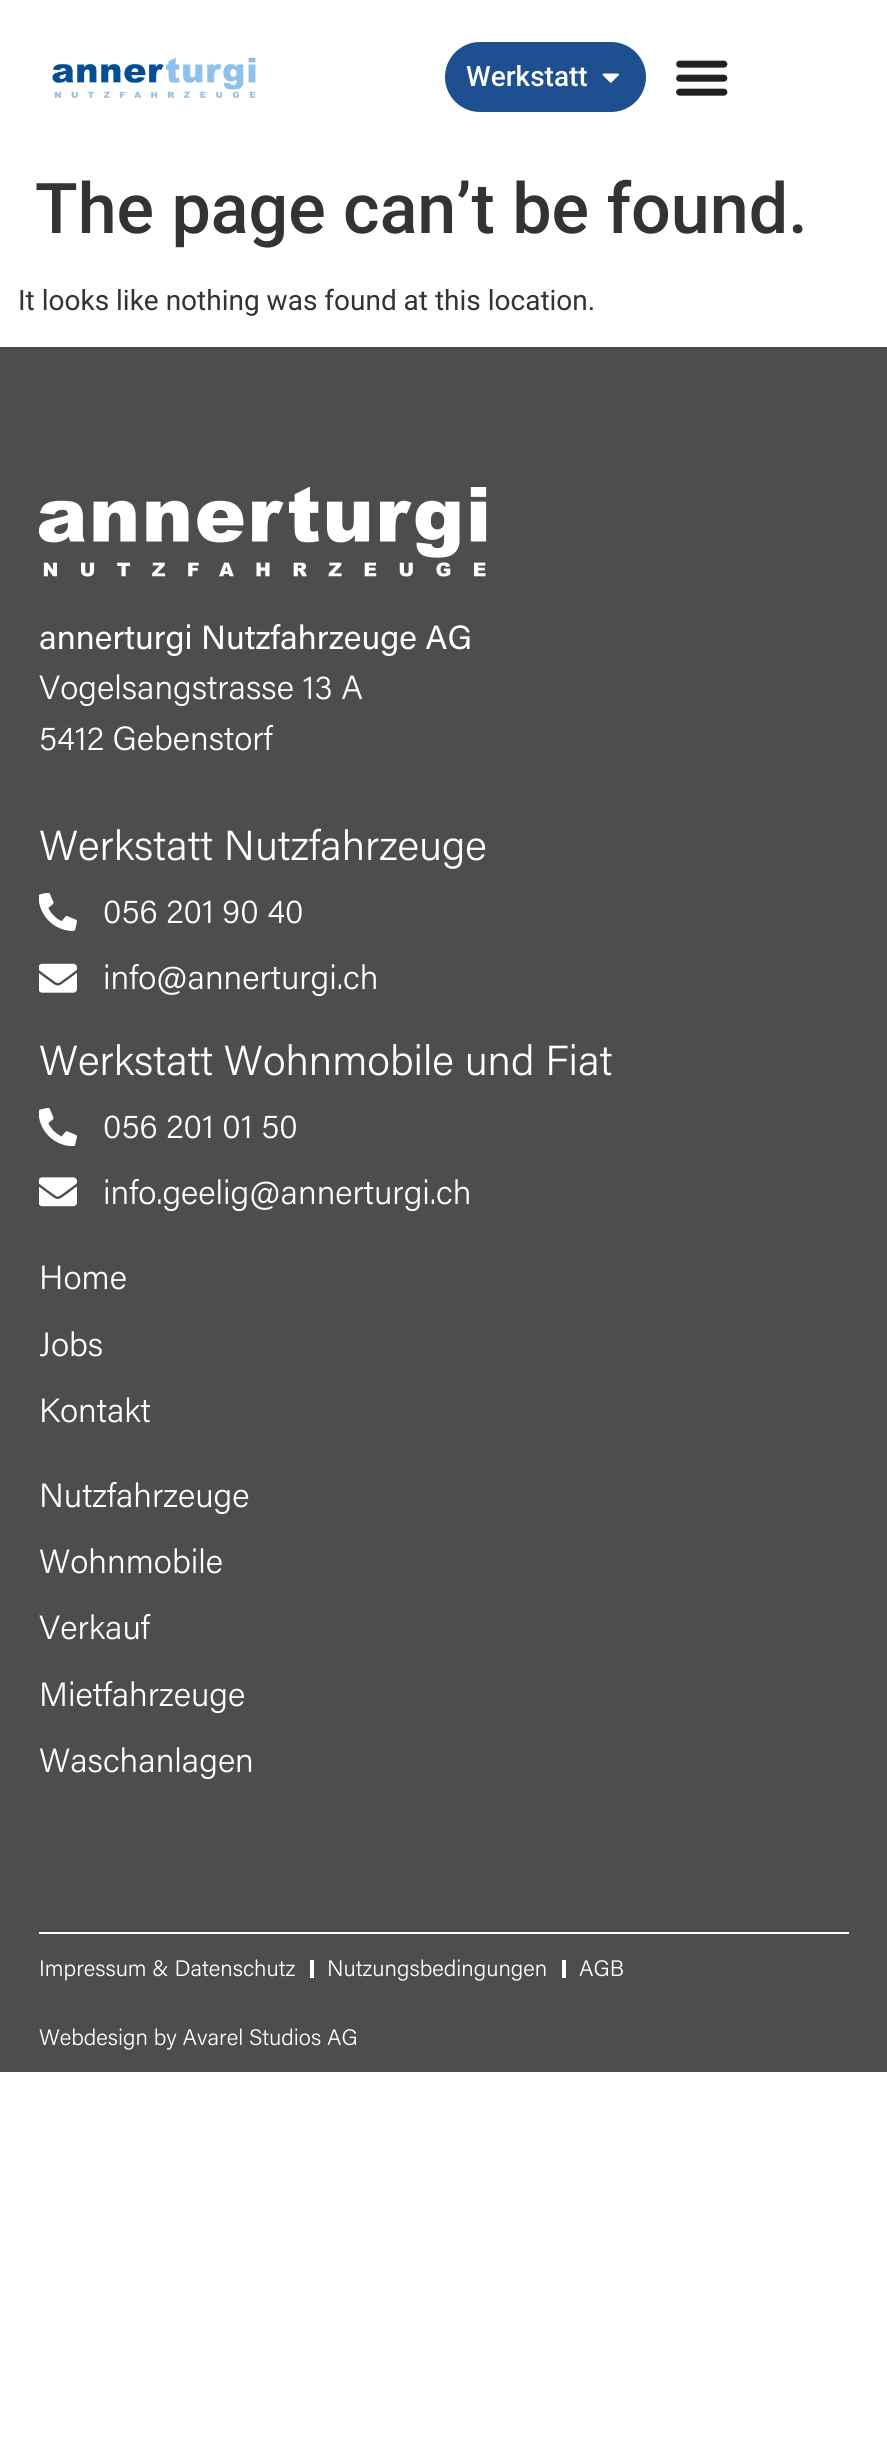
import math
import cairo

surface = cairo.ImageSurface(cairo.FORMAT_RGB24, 887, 2453)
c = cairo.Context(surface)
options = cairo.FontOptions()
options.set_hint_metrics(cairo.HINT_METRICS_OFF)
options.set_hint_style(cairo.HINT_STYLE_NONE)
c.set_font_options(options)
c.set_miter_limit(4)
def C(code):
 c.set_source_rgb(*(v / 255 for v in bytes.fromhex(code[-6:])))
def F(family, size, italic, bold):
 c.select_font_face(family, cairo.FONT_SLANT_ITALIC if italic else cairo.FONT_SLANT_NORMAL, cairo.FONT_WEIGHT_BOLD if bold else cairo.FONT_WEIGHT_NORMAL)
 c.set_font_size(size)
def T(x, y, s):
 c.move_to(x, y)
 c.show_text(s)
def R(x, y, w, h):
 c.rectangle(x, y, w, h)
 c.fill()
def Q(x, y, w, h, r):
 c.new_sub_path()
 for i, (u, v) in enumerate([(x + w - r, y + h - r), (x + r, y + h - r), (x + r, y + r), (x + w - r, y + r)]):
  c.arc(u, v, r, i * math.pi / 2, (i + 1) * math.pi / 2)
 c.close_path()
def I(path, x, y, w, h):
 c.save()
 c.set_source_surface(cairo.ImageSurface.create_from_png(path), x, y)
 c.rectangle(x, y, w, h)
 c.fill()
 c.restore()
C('ffffff')
c.paint()
I('1.png',52,57,204,41)
C('1d4f91')
Q(445,42,201,70,35)
c.fill()
F('Roboto Medium',28,0,0)
C('ffffff')
T(466,86,'Werkstatt')
I('2.png',602,73,17,10)
I('3.png',676,60,52,36)
F('Roboto Medium',70,0,0)
C('333333')
T(35,233,'The page can’t be found.')
F('Roboto',28,0,0)
T(18,310,'It looks like nothing was found at this location.')
C('4d4d4d')
R(0,347,887,1725)
I('4.png',39,487,448,90)
F('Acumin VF',33.6,0,0)
C('ffffff')
T(39,649,'annerturgi Nutzfahrzeuge AG')
F('Acumin VF Light',33.6,0,0)
T(39,699,'Vogelsangstrasse 13 A')
T(39,750,'5412 Gebenstorf')
F('Acumin VF Light',42,0,0)
T(39,860,'Werkstatt Nutzfahrzeuge')
I('5.png',39,893,38,38)
F('Acumin VF Light',33.6,0,0)
T(103,923,'056 201 90 40')
I('6.png',39,963,38,30)
T(103,989,'info@annerturgi.ch')
F('Acumin VF Light',42,0,0)
T(39,1075,'Werkstatt Wohnmobile und Fiat')
I('7.png',39,1108,38,38)
F('Acumin VF Light',33.6,0,0)
T(103,1138,'056 201 01 50')
I('8.png',39,1177,38,30)
T(103,1204,'info.geelig@annerturgi.ch')
T(39,1289,'Home')
T(39,1356,'Jobs')
T(39,1422,'Kontakt')
T(39,1507,'Nutzfahrzeuge')
T(39,1573,'Wohnmobile')
T(39,1639,'Verkauf')
T(39,1706,'Mietfahrzeuge')
T(39,1772,'Waschanlagen')
R(39,1932,810,2)
F('Acumin VF Light',22.4,0,0)
T(39,1976,'Impressum & Datenschutz')
R(310,1960,4,18)
T(327,1976,'Nutzungsbedingungen')
R(562,1960,4,18)
T(579,1976,'AGB')
T(39,2045,'Webdesign by Avarel Studios AG')
surface.write_to_png('o.png')
